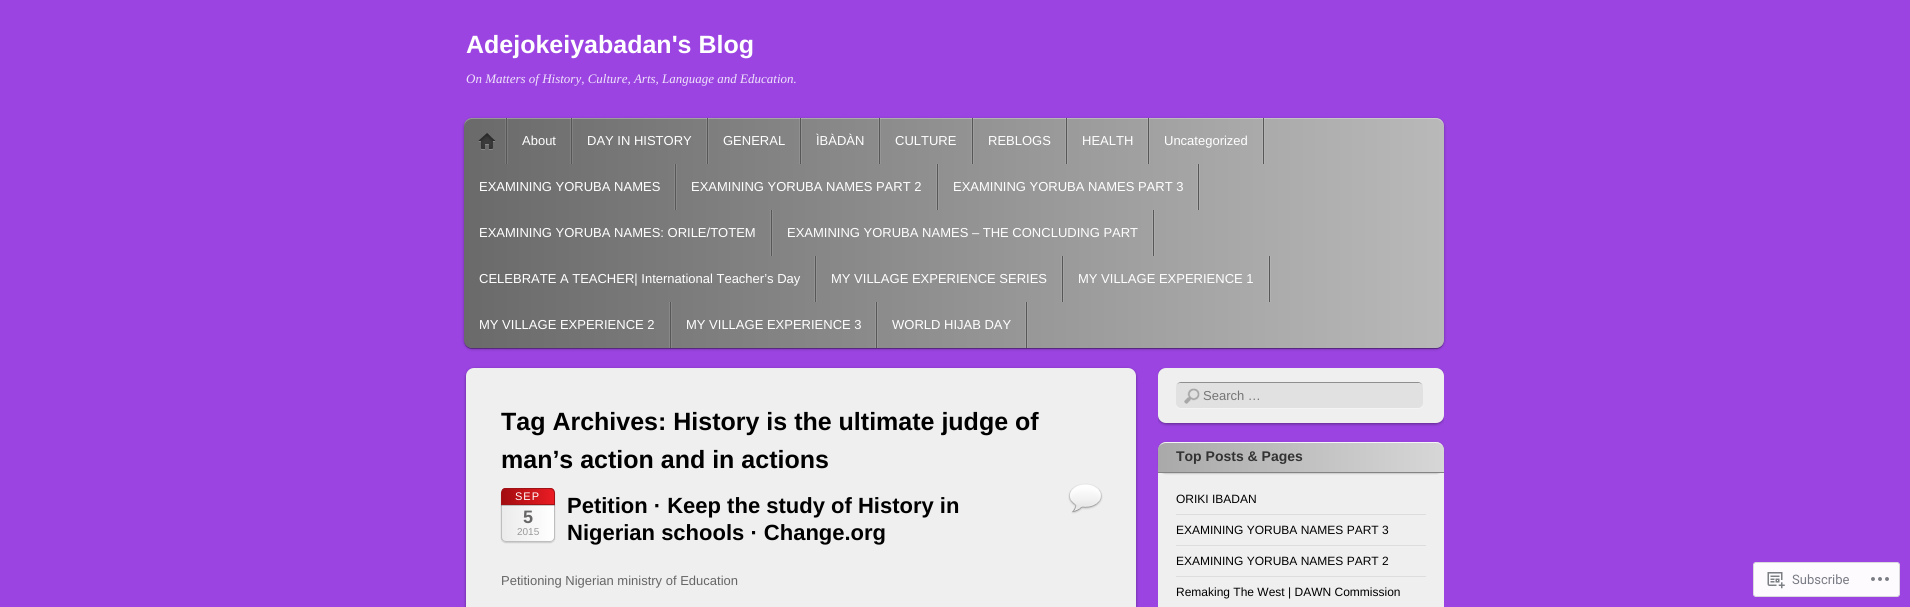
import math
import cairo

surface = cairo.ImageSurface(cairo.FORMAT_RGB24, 1910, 607)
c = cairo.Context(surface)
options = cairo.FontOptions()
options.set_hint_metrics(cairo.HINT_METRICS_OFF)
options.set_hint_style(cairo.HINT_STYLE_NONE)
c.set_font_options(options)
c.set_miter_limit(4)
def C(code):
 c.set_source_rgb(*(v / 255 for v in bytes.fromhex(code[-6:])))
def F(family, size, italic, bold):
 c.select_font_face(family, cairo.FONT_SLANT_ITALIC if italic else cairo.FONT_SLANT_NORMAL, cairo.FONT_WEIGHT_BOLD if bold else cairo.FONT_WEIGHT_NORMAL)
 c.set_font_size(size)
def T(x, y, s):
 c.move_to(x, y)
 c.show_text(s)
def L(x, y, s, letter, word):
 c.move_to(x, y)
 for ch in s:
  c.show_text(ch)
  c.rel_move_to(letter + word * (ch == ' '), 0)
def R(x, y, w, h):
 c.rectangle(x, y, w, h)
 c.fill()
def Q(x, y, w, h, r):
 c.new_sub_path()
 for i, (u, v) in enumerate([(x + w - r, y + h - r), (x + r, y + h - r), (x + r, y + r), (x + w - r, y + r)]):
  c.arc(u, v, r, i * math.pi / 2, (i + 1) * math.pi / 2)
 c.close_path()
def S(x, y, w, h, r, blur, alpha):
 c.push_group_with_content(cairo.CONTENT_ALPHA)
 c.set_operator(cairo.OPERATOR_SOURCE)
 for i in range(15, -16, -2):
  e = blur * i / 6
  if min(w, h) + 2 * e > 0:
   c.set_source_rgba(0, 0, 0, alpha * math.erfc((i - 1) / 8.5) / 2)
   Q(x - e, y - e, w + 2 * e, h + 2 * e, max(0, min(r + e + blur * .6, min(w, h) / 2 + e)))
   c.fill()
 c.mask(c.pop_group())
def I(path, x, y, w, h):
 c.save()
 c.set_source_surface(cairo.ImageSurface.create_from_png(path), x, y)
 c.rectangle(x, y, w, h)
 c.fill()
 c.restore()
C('9b44e2')
c.paint()
F('Liberation Sans',25,0,1)
C('ffffff')
T(466,53,'Adejokeiyabadan\'s Blog')
F('Liberation Serif',13,1,0)
C('f0e3fb')
T(466,83,'On Matters of History, Culture, Arts, Language and Education.')
C('000000')
S(464,119,980,230,8,1.5,.3)
c.set_source_rgba(0,0,0,0.3)
c.new_path()
c.move_to(464,340)
c.curve_to(464,345,467,349,472,349)
c.line_to(1436,349)
c.curve_to(1441,349,1444,345,1444,340)
c.curve_to(1444,344,1440,348,1436,348)
c.line_to(472,348)
c.curve_to(468,348,464,344,464,340)
c.close_path()
c.fill()
gradient = cairo.LinearGradient(1444,233,464,233)
gradient.add_color_stop_rgba(0,0.725,0.725,0.725,1)
gradient.add_color_stop_rgba(1,0.416,0.416,0.416,1)
c.set_source(gradient)
Q(464,118,980,230,8)
c.fill()
c.set_source_rgba(1,1,1,0.3)
c.new_path()
c.move_to(472,119)
c.line_to(1436,119)
c.curve_to(1440,119,1444,123,1444,127)
c.curve_to(1444,122,1441,118,1436,118)
c.line_to(472,118)
c.curve_to(467,118,464,122,464,127)
c.curve_to(464,123,468,119,472,119)
c.close_path()
c.fill()
c.set_source_rgba(1,1,1,0.1)
R(507,118,1,46)
R(505,118,1,46)
C('575757')
R(506,118,1,46)
I('1.png',478,133,18,17)
c.set_source_rgba(1,1,1,0.1)
R(572,118,1,46)
R(570,118,1,46)
C('575757')
R(571,118,1,46)
F('Liberation Sans',13,0,0)
C('ffffff')
T(522,145,'About')
c.set_source_rgba(1,1,1,0.1)
R(708,118,1,46)
R(706,118,1,46)
C('575757')
R(707,118,1,46)
C('ffffff')
T(587,145,'DAY IN HISTORY')
c.set_source_rgba(1,1,1,0.1)
R(801,118,1,46)
R(799,118,1,46)
C('575757')
R(800,118,1,46)
C('ffffff')
T(723,145,'GENERAL')
c.set_source_rgba(1,1,1,0.1)
R(880,118,1,46)
R(878,118,1,46)
C('575757')
R(879,118,1,46)
C('ffffff')
T(816,145,'ÌBÀDÀN')
c.set_source_rgba(1,1,1,0.1)
R(973,118,1,46)
R(971,118,1,46)
C('575757')
R(972,118,1,46)
C('ffffff')
T(895,145,'CULTURE')
c.set_source_rgba(1,1,1,0.1)
R(1067,118,1,46)
R(1065,118,1,46)
C('575757')
R(1066,118,1,46)
C('ffffff')
T(988,145,'REBLOGS')
c.set_source_rgba(1,1,1,0.1)
R(1149,118,1,46)
R(1147,118,1,46)
C('575757')
R(1148,118,1,46)
C('ffffff')
T(1082,145,'HEALTH')
c.set_source_rgba(1,1,1,0.1)
R(1264,118,1,46)
R(1262,118,1,46)
C('575757')
R(1263,118,1,46)
C('ffffff')
T(1164,145,'Uncategorized')
C('888888')
R(676,164,1,46)
R(674,164,1,46)
C('575757')
R(675,164,1,46)
C('ffffff')
T(479,191,'EXAMINING YORUBA NAMES')
C('9b9b9b')
R(938,164,1,46)
R(936,164,1,46)
C('575757')
R(937,164,1,46)
C('ffffff')
T(691,191,'EXAMINING YORUBA NAMES PART 2')
C('aeaeae')
R(1199,164,1,46)
R(1197,164,1,46)
C('575757')
R(1198,164,1,46)
C('ffffff')
T(953,191,'EXAMINING YORUBA NAMES PART 3')
C('8f8f8f')
R(772,210,1,46)
R(770,210,1,46)
C('575757')
R(771,210,1,46)
C('ffffff')
T(479,237,'EXAMINING YORUBA NAMES: ORILE/TOTEM')
C('ababab')
R(1154,210,1,46)
R(1152,210,1,46)
C('575757')
R(1153,210,1,46)
C('ffffff')
T(787,237,'EXAMINING YORUBA NAMES – THE CONCLUDING PART')
C('929292')
R(816,256,1,46)
R(814,256,1,46)
C('575757')
R(815,256,1,46)
C('ffffff')
T(479,283,'CELEBRATE A TEACHER| International Teacher’s Day')
C('a4a4a4')
R(1063,256,1,46)
R(1061,256,1,46)
C('575757')
R(1062,256,1,46)
C('ffffff')
T(831,283,'MY VILLAGE EXPERIENCE SERIES')
C('b3b3b3')
R(1270,256,1,46)
R(1268,256,1,46)
C('575757')
R(1269,256,1,46)
C('ffffff')
T(1078,283,'MY VILLAGE EXPERIENCE 1')
C('888888')
R(671,302,1,46)
R(669,302,1,46)
C('575757')
R(670,302,1,46)
C('ffffff')
T(479,329,'MY VILLAGE EXPERIENCE 2')
C('979797')
R(877,302,1,46)
R(875,302,1,46)
C('575757')
R(876,302,1,46)
C('ffffff')
T(686,329,'MY VILLAGE EXPERIENCE 3')
C('a1a1a1')
R(1027,302,1,46)
R(1025,302,1,46)
C('575757')
R(1026,302,1,46)
C('ffffff')
T(892,329,'WORLD HIJAB DAY')
C('000000')
S(466,369,670,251,8,1.5,.4)
C('efefef')
Q(466,368,670,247,8)
c.fill()
F('Liberation Sans',25,0,1)
C('000000')
T(501,430,'Tag Archives: History is the ultimate judge of')
T(501,468,'man’s action and in actions')
C('000000')
S(501,489,54,54,5,.5,.15)
c.save()
Q(501,488,54,54,5)
c.clip()
gradient = cairo.LinearGradient(554,515,502,515)
gradient.add_color_stop_rgba(0,1,1,1,1)
gradient.add_color_stop_rgba(1,0.925,0.922,0.922,1)
c.set_source(gradient)
R(502,488,52,54)
c.restore()
Q(501.5,488.5,53,53,4.5)
C('bebebe')
c.set_line_width(1)
c.stroke()
c.set_source_rgba(0,0,0,0.2)
R(501,505,54,1)
c.save()
c.new_path()
c.move_to(506,488)
c.line_to(550,488)
c.curve_to(553,488,555,490,555,493)
c.line_to(555,505)
c.line_to(501,505)
c.line_to(501,493)
c.curve_to(501,490,503,488,506,488)
c.close_path()
c.clip()
gradient = cairo.LinearGradient(554,497,502,497)
gradient.add_color_stop_rgba(0,0.922,0.11,0.141,1)
gradient.add_color_stop_rgba(1,0.639,0.047,0.063,1)
c.set_source(gradient)
R(502,488,52,16)
c.restore()
c.new_path()
c.move_to(506,488.5)
c.line_to(550,488.5)
c.curve_to(552.5,488.5,554.5,490.5,554.5,493)
c.line_to(554.5,504.5)
c.line_to(501.5,504.5)
c.line_to(501.5,493)
c.curve_to(501.5,490.5,503.5,488.5,506,488.5)
c.close_path()
C('a11216')
c.stroke()
F('Liberation Sans',11,0,0)
C('ffffff')
L(515,500,'SEP',1,0)
F('Liberation Sans',18,0,1)
C('666666')
T(523,523,'5')
F('Liberation Sans',10,0,0)
C('999999')
T(517,535,'2015')
F('Liberation Sans',22,0,1)
C('000000')
T(567,513,'Petition · Keep the study of History in')
T(567,540,'Nigerian schools · Change.org')
I('2.png',1068,483,35,31)
F('Liberation Sans',13,0,0)
C('666666')
T(501,585,'Petitioning Nigerian ministry of Education')
c.save()
c.rectangle(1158,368,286,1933)
c.clip()
C('000000')
S(1158,369,286,55,8,1.5,.4)
c.restore()
C('efefef')
Q(1158,368,286,55,8)
c.fill()
C('f4f4f4')
c.new_path()
c.move_to(1176,403)
c.line_to(1176,404)
c.curve_to(1176,407,1178,409,1181,409)
c.line_to(1418,409)
c.curve_to(1421,409,1423,407,1423,404)
c.line_to(1423,403)
c.curve_to(1423,406,1421,408,1418,408)
c.line_to(1181,408)
c.curve_to(1178,408,1176,406,1176,403)
c.close_path()
c.fill()
C('8f8f8f')
c.new_path()
c.move_to(1181,382)
c.curve_to(1178,382,1176,385,1176,388)
c.curve_to(1176,385,1178,383,1181,383)
c.line_to(1418,383)
c.curve_to(1421,383,1423,385,1423,388)
c.curve_to(1423,385,1421,382,1418,382)
c.close_path()
c.fill()
C('e1e1e1')
Q(1176,383,247,25,5)
c.fill()
I('3.png',1184,388,16,16)
C('757575')
T(1203,400,'Search …')
c.save()
c.rectangle(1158,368,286,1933)
c.clip()
C('000000')
S(1158,444,286,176,8,1.5,.4)
c.restore()
C('efefef')
Q(1158,443,286,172,8)
c.fill()
C('000000')
S(1158,443,286,31,8,.5,.15)
gradient = cairo.LinearGradient(1444,458,1158,458)
gradient.add_color_stop_rgba(0,0.843,0.843,0.843,1)
gradient.add_color_stop_rgba(1,0.663,0.663,0.663,1)
c.set_source(gradient)
c.new_path()
c.move_to(1166,442)
c.line_to(1436,442)
c.curve_to(1440.5,442,1444,445.5,1444,450)
c.line_to(1444,473)
c.line_to(1158,473)
c.line_to(1158,450)
c.curve_to(1158,445.5,1161.5,442,1166,442)
c.close_path()
c.fill()
C('f5f5f5')
c.new_path()
c.move_to(1166,442)
c.curve_to(1162,442,1158,446,1158,450)
c.curve_to(1158,446,1162,443,1166,443)
c.line_to(1436,443)
c.curve_to(1440,443,1444,446,1444,450)
c.curve_to(1444,446,1440,442,1436,442)
c.close_path()
c.fill()
C('848484')
R(1158,472,286,1)
F('Liberation Sans',14,0,1)
C('333333')
T(1176,461,'Top Posts & Pages')
C('dddddd')
R(1176,514,250,1)
F('Liberation Sans',12,0,0)
C('000000')
T(1176,503,'ORIKI IBADAN')
C('dddddd')
R(1176,545,250,1)
C('000000')
T(1176,534,'EXAMINING YORUBA NAMES PART 3')
C('dddddd')
R(1176,576,250,1)
C('000000')
T(1176,565,'EXAMINING YORUBA NAMES PART 2')
T(1176,596,'Remaking The West | DAWN Commission')
C('fdfbfe')
Q(1753.5,562.5,146,34,2.5)
c.fill_preserve()
C('dbd9de')
c.stroke()
I('4.png',1767,572,18,17)
F('Roboto',13,0,0)
C('797b84')
T(1792,584,'Subscribe')
I('5.png',1871,577,18,4)
surface.write_to_png('o.png')
